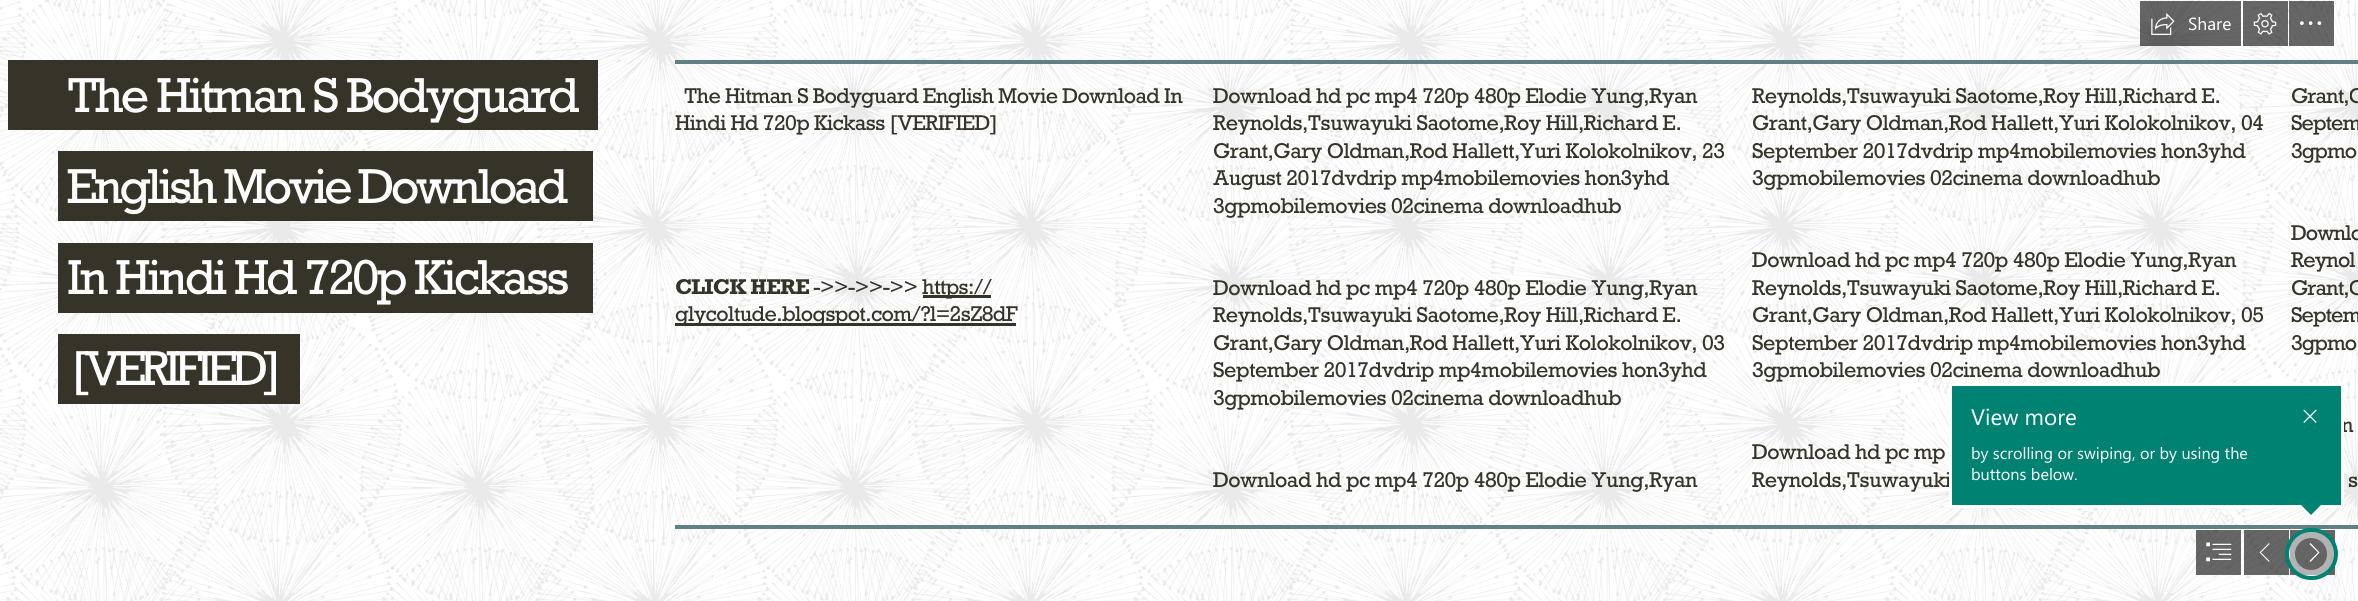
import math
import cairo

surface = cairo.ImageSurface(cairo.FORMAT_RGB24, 2358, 601)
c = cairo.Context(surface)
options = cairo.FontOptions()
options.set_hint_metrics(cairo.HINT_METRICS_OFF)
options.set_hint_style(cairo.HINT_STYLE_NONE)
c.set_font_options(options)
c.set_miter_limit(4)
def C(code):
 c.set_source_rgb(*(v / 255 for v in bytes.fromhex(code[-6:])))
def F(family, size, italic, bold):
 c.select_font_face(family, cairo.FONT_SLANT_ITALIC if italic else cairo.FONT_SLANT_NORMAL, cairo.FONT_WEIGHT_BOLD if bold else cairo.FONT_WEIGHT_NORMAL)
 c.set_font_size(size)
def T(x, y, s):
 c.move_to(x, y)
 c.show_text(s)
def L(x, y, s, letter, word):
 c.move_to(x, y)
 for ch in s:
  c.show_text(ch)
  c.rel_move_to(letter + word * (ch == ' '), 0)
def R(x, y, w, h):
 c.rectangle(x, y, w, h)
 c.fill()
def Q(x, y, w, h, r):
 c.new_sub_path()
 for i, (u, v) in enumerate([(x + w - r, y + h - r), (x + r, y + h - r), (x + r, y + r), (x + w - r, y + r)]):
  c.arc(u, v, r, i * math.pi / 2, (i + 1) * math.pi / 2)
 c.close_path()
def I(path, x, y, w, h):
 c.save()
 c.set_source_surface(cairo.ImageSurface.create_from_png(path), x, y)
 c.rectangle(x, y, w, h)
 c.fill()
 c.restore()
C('eaeaea')
c.paint()
I('4.png',0,0,2358,601)
c.set_source_rgba(0,0,0,0.6)
R(2140,1,101,45)
I('1.png',2151,13,24,22)
F('Segoe UI',17.5,0,0)
C('ffffff')
T(2188,30,'Share')
c.set_source_rgba(0,0,0,0.6)
R(2243,1,45,45)
I('2.png',2253,12,24,23)
R(2289,1,45,45)
I('3.png',2300,21,22,4)
C('363328')
R(8,60,590,70)
F('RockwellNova',46,0,0)
C('ffffff')
L(67,112,'The Hitman S Bodyguard',-2.75,0)
C('363328')
R(58,151,535,70)
C('ffffff')
L(67,203,'English Movie Download',-3.5,0)
C('363328')
R(58,243,535,70)
C('ffffff')
L(67,294,'In Hindi Hd 720p Kickass',-2.9,0)
C('363328')
R(58,334,242,70)
C('ffffff')
L(71,385,'[VERIFIED]',-5.75,0)
C('618084')
R(675,60,1683,4)
F('RockwellNova',20.05,0,0)
C('363328')
L(684,103,'The Hitman S Bodyguard English Movie Download In',-.65,0)
L(675,130,'Hindi Hd 720p Kickass [VERIFIED]',-.65,0)
F('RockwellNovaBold',20.05,0,1)
L(675,294,'CLICK HERE',-.65,0)
F('RockwellNova',20.05,0,0)
L(813,294,'->>->>->>',-.65,0)
R(923,295,68,3)
L(922,294,'https://',-.65,0)
R(675,323,341,3)
L(675,321,'glycoltude.blogspot.com/?l=2sZ8dF',-.65,0)
L(1213,103,'Download hd pc mp4 720p 480p Elodie Yung,Ryan',-.53,0)
L(1213,130,'Reynolds,Tsuwayuki Saotome,Roy Hill,Richard E.',-.53,0)
L(1213,158,'Grant,Gary Oldman,Rod Hallett,Yuri Kolokolnikov, 23',-.53,0)
L(1213,185,'August 2017dvdrip mp4mobilemovies hon3yhd',-.53,0)
L(1213,213,'3gpmobilemovies 02cinema downloadhub',-.53,0)
L(1213,295,'Download hd pc mp4 720p 480p Elodie Yung,Ryan',-.53,0)
L(1213,322,'Reynolds,Tsuwayuki Saotome,Roy Hill,Richard E.',-.53,0)
L(1213,350,'Grant,Gary Oldman,Rod Hallett,Yuri Kolokolnikov, 03',-.53,0)
L(1213,377,'September 2017dvdrip mp4mobilemovies hon3yhd',-.53,0)
L(1213,405,'3gpmobilemovies 02cinema downloadhub',-.53,0)
L(1213,487,'Download hd pc mp4 720p 480p Elodie Yung,Ryan',-.53,0)
L(1752,103,'Reynolds,Tsuwayuki Saotome,Roy Hill,Richard E.',-.53,0)
L(1752,130,'Grant,Gary Oldman,Rod Hallett,Yuri Kolokolnikov, 04',-.53,0)
L(1752,158,'September 2017dvdrip mp4mobilemovies hon3yhd',-.53,0)
L(1752,185,'3gpmobilemovies 02cinema downloadhub',-.53,0)
L(1752,267,'Download hd pc mp4 720p 480p Elodie Yung,Ryan',-.53,0)
L(1752,295,'Reynolds,Tsuwayuki Saotome,Roy Hill,Richard E.',-.53,0)
L(1752,322,'Grant,Gary Oldman,Rod Hallett,Yuri Kolokolnikov, 05',-.53,0)
L(1752,350,'September 2017dvdrip mp4mobilemovies hon3yhd',-.53,0)
L(1752,377,'3gpmobilemovies 02cinema downloadhub',-.53,0)
L(1752,459,'Download hd pc mp',-.53,0)
L(1752,487,'Reynolds,Tsuwayuki',-.53,0)
L(2291,103,'Grant,G',-1,0)
L(2291,130,'Septem',-1,0)
L(2291,158,'3gpmo',-1,0)
L(2291,240,'Downlo',-1,0)
L(2291,267,'Reynol',-1,0)
L(2291,295,'Grant,G',-1,0)
L(2291,322,'Septem',-1,0)
L(2291,350,'3gpmo',-1,0)
L(2341,432,'n',-1,0)
L(2348,487,'s',-1,0)
C('618084')
R(675,525,1683,4)
C('008272')
c.rectangle(1950.5,384.5,392,122)
c.fill_preserve()
C('ffffff')
c.set_line_width(3)
c.stroke()
F('Segoe UI',22.5,0,0)
T(1971,425,'View more')
F('Segoe UI',16.25,0,0)
T(1971,459,'by scrolling or swiping, or by using the')
T(1971,480,'buttons below.')
I('5.png',2303,409,14,14)
c.new_path()
c.move_to(2299,505)
c.line_to(2324,505)
c.line_to(2311,517.5)
c.close_path()
c.fill()
C('008272')
c.new_path()
c.move_to(2301,505)
c.line_to(2321,505)
c.line_to(2311,515)
c.close_path()
c.fill()
c.set_source_rgba(0,0,0,0.6)
R(2244,530,45,45)
R(2290,530,45,45)
C('ffffff')
c.new_path()
c.move_to(2310.5,562)
c.line_to(2309.5,561)
c.line_to(2318,552.5)
c.line_to(2309.5,544)
c.line_to(2310.5,543)
c.line_to(2319.5,552.5)
c.close_path()
c.fill()
c.arc(2311,554,20.5,0,2 * math.pi)
c.set_source_rgba(1,1,1,0.5)
c.set_line_width(9)
c.stroke()
Q(2287,530,49,48,24)
C('008272')
c.set_line_width(4)
c.stroke()
c.set_source_rgba(0,0,0,0.6)
R(2196,530,45,45)
I('6.png',2206,542,26,20)
C('ffffff')
c.new_path()
c.move_to(2259.5,552.5)
c.line_to(2269,543)
c.line_to(2269.5,544)
c.line_to(2261,552.5)
c.line_to(2269.5,561)
c.line_to(2269,562)
c.close_path()
c.fill()
surface.write_to_png('o.png')
